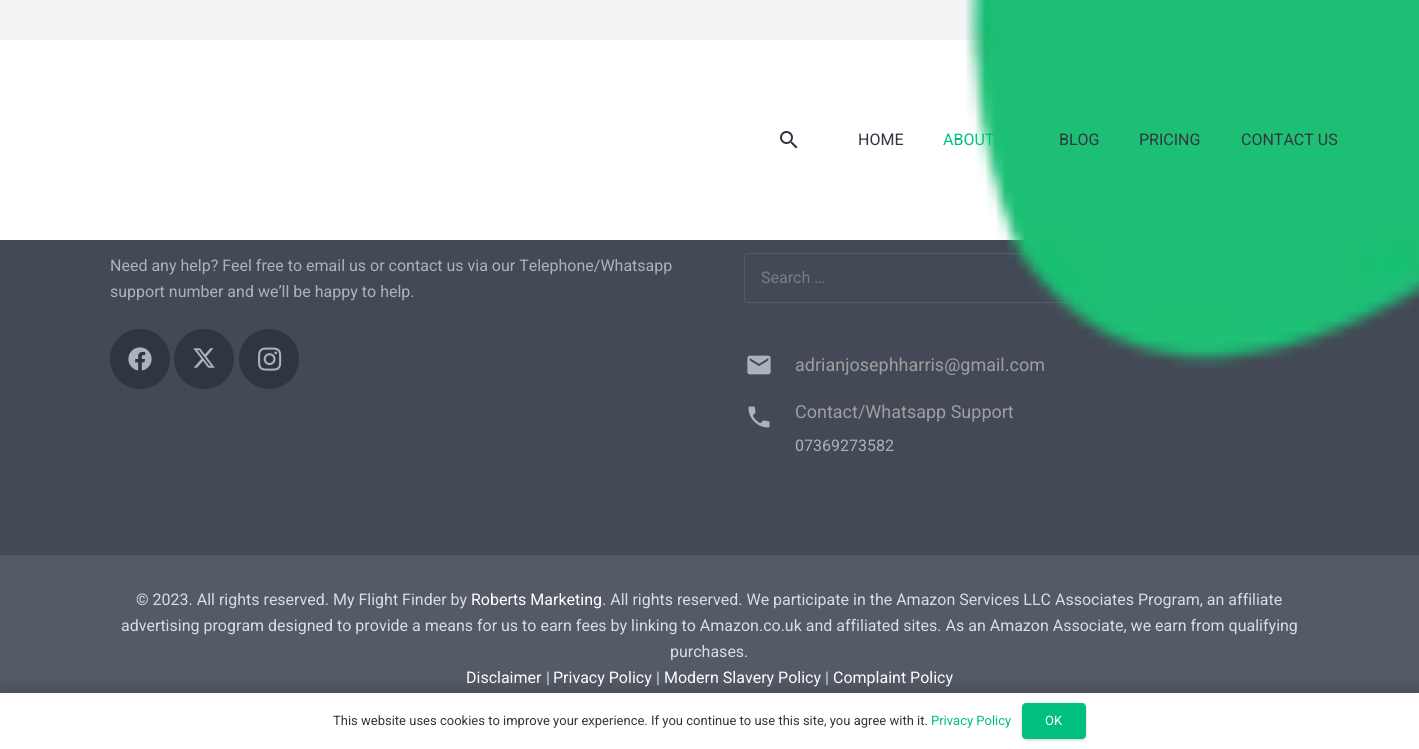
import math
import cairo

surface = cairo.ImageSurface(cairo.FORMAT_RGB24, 1419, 749)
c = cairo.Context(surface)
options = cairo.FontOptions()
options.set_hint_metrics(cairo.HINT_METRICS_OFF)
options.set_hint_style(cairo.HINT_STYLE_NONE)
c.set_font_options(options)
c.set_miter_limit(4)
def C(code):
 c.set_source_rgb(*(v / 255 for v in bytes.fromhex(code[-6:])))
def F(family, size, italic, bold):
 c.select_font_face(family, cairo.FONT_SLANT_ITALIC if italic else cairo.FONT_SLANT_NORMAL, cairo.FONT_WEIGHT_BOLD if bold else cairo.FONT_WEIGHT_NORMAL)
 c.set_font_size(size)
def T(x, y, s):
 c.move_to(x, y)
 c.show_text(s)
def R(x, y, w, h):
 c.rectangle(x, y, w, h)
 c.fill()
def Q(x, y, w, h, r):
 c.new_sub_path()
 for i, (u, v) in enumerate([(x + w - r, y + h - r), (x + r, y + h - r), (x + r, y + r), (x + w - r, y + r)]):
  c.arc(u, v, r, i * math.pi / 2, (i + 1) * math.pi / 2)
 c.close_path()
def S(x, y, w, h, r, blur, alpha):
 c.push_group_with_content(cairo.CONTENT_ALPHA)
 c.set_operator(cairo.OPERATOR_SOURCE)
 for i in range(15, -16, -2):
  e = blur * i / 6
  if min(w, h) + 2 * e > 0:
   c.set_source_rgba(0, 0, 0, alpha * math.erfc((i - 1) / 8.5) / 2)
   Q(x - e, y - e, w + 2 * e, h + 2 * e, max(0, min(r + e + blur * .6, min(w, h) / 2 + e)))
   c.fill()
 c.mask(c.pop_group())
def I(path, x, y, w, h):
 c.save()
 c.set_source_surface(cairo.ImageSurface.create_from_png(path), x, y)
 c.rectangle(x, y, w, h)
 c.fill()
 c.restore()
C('434955')
c.paint()
C('f2f3f5')
R(0,0,985,40)
C('ffffff')
R(0,40,1025,200)
Q(744.5,253.5,565,49,2.5)
C('545a66')
c.set_line_width(1)
c.stroke()
F('Roboto',18,0,0)
C('9e9e9e')
T(795,371,'adrianjosephharris@gmail.com')
I('1.png',966,0,453,369)
I('2.png',780,131,18,18)
F('Roboto',16,0,0)
C('303640')
T(858,145,'HOME')
C('00bf80')
T(943,145,'ABOUT')
C('303640')
T(1059,145,'BLOG')
T(1139,145,'PRICING')
T(1241,145,'CONTACT US')
C('aab2bd')
T(110,271,'Need any help? Feel free to email us or contact us via our Telephone/Whatsapp')
T(110,297,'support number and we’ll be happy to help.')
C('303640')
c.new_path()
c.arc(140,359,30,0,2 * math.pi)
c.fill()
I('3.png',128,347,24,24)
c.arc(204,359,30,0,2 * math.pi)
c.fill()
I('4.png',193,348,22,20)
c.arc(269,359,30,0,2 * math.pi)
c.fill()
I('5.png',258,347,24,24)
C('777e89')
T(761,283,'Search …')
I('6.png',747,355,24,20)
I('7.png',748,406,22,22)
F('Roboto',18,0,0)
C('9e9e9e')
T(795,418,'Contact/Whatsapp Support')
F('Roboto',16,0,0)
C('aab2bd')
T(795,451,'07369273582')
C('545a66')
R(0,555,1419,138)
C('d7dde0')
T(136,605,'© 2023. All rights reserved. My Flight Finder by')
C('ffffff')
T(471,605,'Roberts Marketing')
C('d7dde0')
T(602,605,'. All rights reserved. We participate in the Amazon Services LLC Associates Program, an affiliate')
T(121,631,'advertising program designed to provide a means for us to earn fees by linking to Amazon.co.uk and affiliated sites. As an Amazon Associate, we earn from qualifying')
T(670,657,'purchases.')
C('ffffff')
T(466,683,'Disclaimer')
C('d7dde0')
T(546,683,'|')
C('ffffff')
T(553,683,'Privacy Policy')
C('d7dde0')
T(656,683,'|')
C('ffffff')
T(664,683,'Modern Slavery Policy')
C('d7dde0')
T(825,683,'|')
C('ffffff')
T(833,683,'Complaint Policy')
C('000000')
S(0,688,1419,56,0,7.5,.15)
C('ffffff')
R(0,693,1419,56)
F('Roboto',13,0,0)
C('303640')
T(333,725,'This website uses cookies to improve your experience. If you continue to use this site, you agree with it.')
C('00bf80')
T(931,725,'Privacy Policy')
C('000000')
S(1022,704,64,36,4,1.5,.2)
C('00bf80')
Q(1022,703,64,36,4)
c.fill()
C('ffffff')
T(1045,725,'OK')
surface.write_to_png('o.png')
